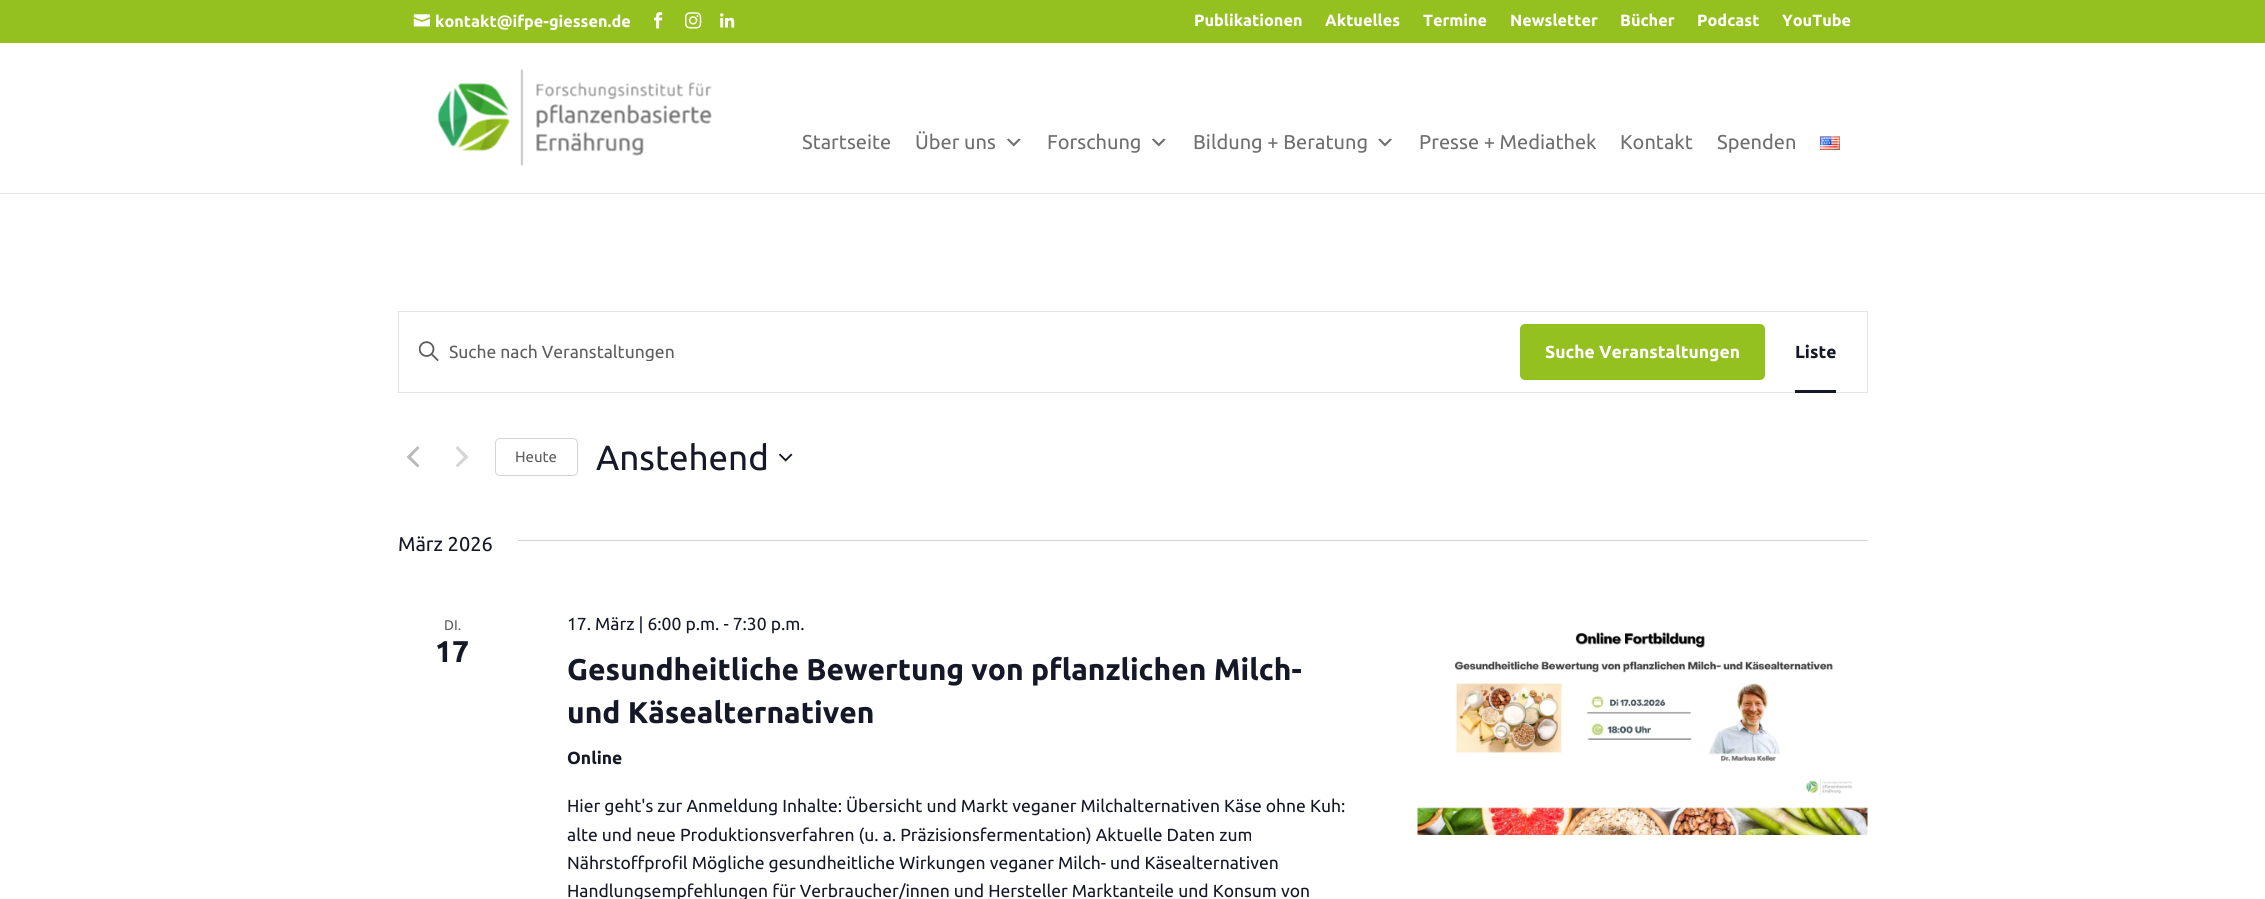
import math
import cairo

surface = cairo.ImageSurface(cairo.FORMAT_RGB24, 2265, 899)
c = cairo.Context(surface)
options = cairo.FontOptions()
options.set_hint_metrics(cairo.HINT_METRICS_OFF)
options.set_hint_style(cairo.HINT_STYLE_NONE)
c.set_font_options(options)
c.set_miter_limit(4)
def C(code):
 c.set_source_rgb(*(v / 255 for v in bytes.fromhex(code[-6:])))
def F(family, size, italic, bold):
 c.select_font_face(family, cairo.FONT_SLANT_ITALIC if italic else cairo.FONT_SLANT_NORMAL, cairo.FONT_WEIGHT_BOLD if bold else cairo.FONT_WEIGHT_NORMAL)
 c.set_font_size(size)
def T(x, y, s):
 c.move_to(x, y)
 c.show_text(s)
def R(x, y, w, h):
 c.rectangle(x, y, w, h)
 c.fill()
def Q(x, y, w, h, r):
 c.new_sub_path()
 for i, (u, v) in enumerate([(x + w - r, y + h - r), (x + r, y + h - r), (x + r, y + r), (x + w - r, y + r)]):
  c.arc(u, v, r, i * math.pi / 2, (i + 1) * math.pi / 2)
 c.close_path()
def I(path, x, y, w, h):
 c.save()
 c.set_source_surface(cairo.ImageSurface.create_from_png(path), x, y)
 c.rectangle(x, y, w, h)
 c.fill()
 c.restore()
C('ffffff')
c.paint()
C('94c11f')
R(0,0,2265,43)
I('1.png',413,14,17,13)
F('Ubuntu',16.25,0,1)
C('ffffff')
T(435,27,'kontakt@ifpe-giessen.de')
I('2.png',654,12,9,17)
I('3.png',685,12,17,17)
I('4.png',720,13,15,15)
T(1194,26,'Publikationen')
T(1325,26,'Aktuelles')
T(1423,26,'Termine')
T(1510,26,'Newsletter')
T(1620,26,'Bücher')
T(1697,26,'Podcast')
T(1782,26,'YouTube')
C('e6e6e6')
R(0,193,2265,1)
I('5.png',437,69,275,97)
F('Ubuntu',20,0,0)
C('706f6f')
T(802,149,'Startseite')
T(915,149,'Über uns')
I('6.png',1006,138,15,9)
T(1047,149,'Forschung')
I('6.png',1151,138,15,9)
T(1193,149,'Bildung + Beratung')
I('7.png',1378,138,14,9)
T(1419,149,'Presse + Mediathek')
T(1620,149,'Kontakt')
T(1717,149,'Spenden')
I('8.png',1820,136,20,14)
c.rectangle(398.5,311.5,1469,81)
C('e4e4e4')
c.set_line_width(1)
c.stroke()
I('9.png',419,341,20,20)
c.save()
c.rectangle(449,341,1046,20)
c.clip()
F('Ubuntu',17.5,0,0)
C('5d5d5d')
T(449,358,'Suche nach Veranstaltungen')
c.restore()
C('94c11f')
Q(1520,324,245,56,5)
c.fill()
F('Ubuntu',17.5,0,1)
C('ffffff')
T(1545,358,'Suche Veranstaltungen')
C('141827')
T(1795,358,'Liste')
R(1795,390,41,3)
C('bababa')
c.new_path()
c.move_to(419.5,465.5)
c.line_to(417.5,467.5)
c.line_to(406.5,457)
c.line_to(417.5,446)
c.line_to(419.5,448)
c.line_to(411,457)
c.close_path()
c.fill()
C('d5d5d5')
c.new_path()
c.move_to(455.5,448)
c.line_to(457.5,446)
c.line_to(468.5,457)
c.line_to(457.5,467.5)
c.line_to(455.5,465.5)
c.line_to(464,457)
c.close_path()
c.fill()
Q(495.5,438.5,82,37,4.5)
c.stroke()
F('Ubuntu',15,0,0)
C('5d5d5d')
T(515,462,'Heute')
F('Ubuntu',35,0,0)
C('141827')
T(596,470,'Anstehend')
I('10.png',779,453,14,9)
F('Ubuntu',20,0,0)
T(398,551,'März 2026')
C('d5d5d5')
R(518,540,1350,1)
F('Ubuntu',14,0,0)
C('5d5d5d')
T(444,630,'DI.')
F('Ubuntu',30,0,1)
C('141827')
T(435,662,'17')
F('Ubuntu',17.5,0,0)
T(567,630,'17. März | 6:00 p.m. - 7:30 p.m.')
F('Ubuntu',30,0,1)
T(567,680,'Gesundheitliche Bewertung von pflanzlichen Milch-')
T(567,723,'und Käsealternativen')
F('Ubuntu',17.5,0,1)
T(567,764,'Online')
F('Ubuntu',17.5,0,0)
T(567,812,'Hier geht\'s zur Anmeldung Inhalte: Übersicht und Markt veganer Milchalternativen Käse ohne Kuh:')
T(567,841,'alte und neue Produktionsverfahren (u. a. Präzisionsfermentation) Aktuelle Daten zum')
T(567,869,'Nährstoffprofil Mögliche gesundheitliche Wirkungen veganer Milch- und Käsealternativen')
T(567,897,'Handlungsempfehlungen für Verbraucher/innen und Hersteller Marktanteile und Konsum von')
I('11.png',1417,632,451,203)
surface.write_to_png('o.png')
